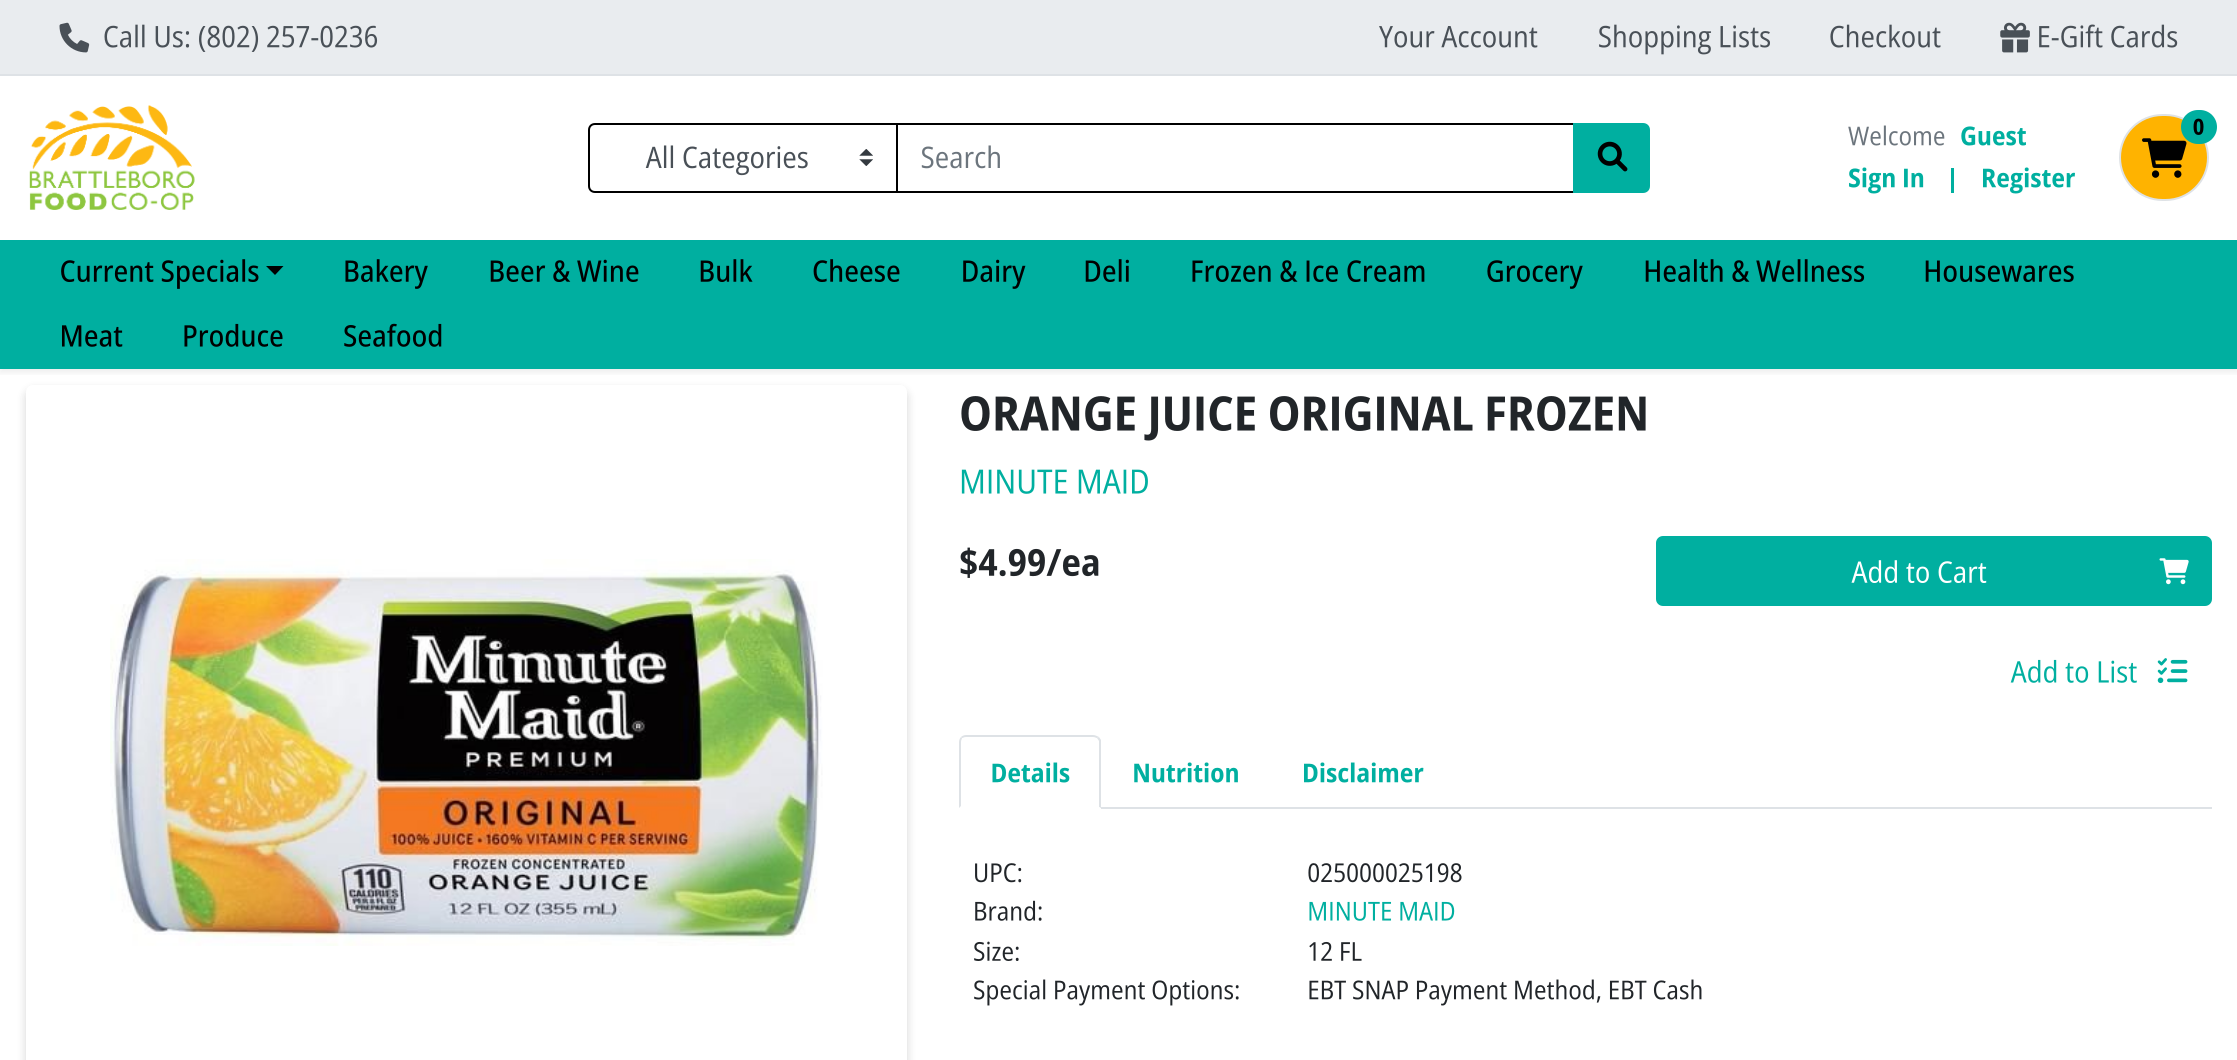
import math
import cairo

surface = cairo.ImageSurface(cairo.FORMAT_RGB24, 2237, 1060)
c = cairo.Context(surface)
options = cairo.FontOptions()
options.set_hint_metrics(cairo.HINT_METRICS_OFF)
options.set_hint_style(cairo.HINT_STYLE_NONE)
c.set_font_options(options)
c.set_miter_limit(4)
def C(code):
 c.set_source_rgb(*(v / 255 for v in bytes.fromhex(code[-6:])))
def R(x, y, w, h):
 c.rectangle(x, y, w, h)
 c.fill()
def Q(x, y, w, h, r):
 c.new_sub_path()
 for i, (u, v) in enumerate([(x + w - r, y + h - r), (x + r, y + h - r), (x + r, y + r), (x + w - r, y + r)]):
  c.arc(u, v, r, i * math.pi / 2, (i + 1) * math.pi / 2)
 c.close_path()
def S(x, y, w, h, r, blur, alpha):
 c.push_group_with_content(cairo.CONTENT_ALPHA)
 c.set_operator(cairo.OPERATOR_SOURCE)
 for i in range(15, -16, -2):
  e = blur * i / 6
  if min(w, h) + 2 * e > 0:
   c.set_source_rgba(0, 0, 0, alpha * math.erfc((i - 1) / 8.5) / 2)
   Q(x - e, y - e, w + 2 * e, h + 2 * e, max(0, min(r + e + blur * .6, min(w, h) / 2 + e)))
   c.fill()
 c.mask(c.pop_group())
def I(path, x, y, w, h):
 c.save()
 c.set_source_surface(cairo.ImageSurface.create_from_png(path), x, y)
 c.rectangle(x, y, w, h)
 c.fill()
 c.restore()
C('ffffff')
c.paint()
c.save()
c.rectangle(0,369,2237,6)
c.clip()
C('000000')
S(0,4,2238,369,0,3.5,.07)
c.restore()
C('e9ecef')
R(0,0,2237,74)
C('dee2e6')
R(0,74,2237,2)
I('1.png',59,22,31,31)
I('2.png',104,24,274,28)
I('3.png',1379,26,159,22)
I('4.png',1599,24,171,31)
I('5.png',1830,24,111,24)
I('6.png',2000,22,30,31)
I('7.png',2039,24,139,24)
I('8.png',29,105,166,105)
c.rectangle(897,124,677,68)
C('000000')
c.stroke()
C('ffffff')
c.new_path()
c.move_to(595,123)
c.line_to(898,123)
c.line_to(898,193)
c.line_to(595,193)
c.curve_to(591,193,588,190,588,186)
c.line_to(588,130)
c.curve_to(588,126,591,123,595,123)
c.close_path()
c.fill()
I('9.png',859,149,14,17)
c.new_path()
c.move_to(595,124)
c.line_to(897,124)
c.line_to(897,192)
c.line_to(595,192)
c.curve_to(591.5,192,589,189.5,589,186)
c.line_to(589,130)
c.curve_to(589,126.5,591.5,124,595,124)
c.close_path()
C('000000')
c.stroke()
I('10.png',645,145,163,31)
I('11.png',921,145,79,24)
C('00afa0')
c.new_path()
c.move_to(1574,124)
c.line_to(1643,124)
c.curve_to(1646.5,124,1649,126.5,1649,130)
c.line_to(1649,186)
c.curve_to(1649,189.5,1646.5,192,1643,192)
c.line_to(1574,192)
c.close_path()
c.fill_preserve()
c.stroke()
I('12.png',1597,141,31,31)
I('13.png',1848,125,97,21)
I('14.png',1961,126,65,20)
I('15.png',1849,167,75,27)
R(1951,168,3,25)
I('16.png',1983,167,92,27)
C('ffb300')
Q(2120,115,88,85,42.5)
c.fill_preserve()
C('dee2e6')
c.stroke()
I('18.png',2142,138,45,40)
C('00afa0')
Q(2181,110,36,34,17)
c.fill()
I('17.png',2193,118,11,17)
R(0,240,2237,129)
I('19.png',61,259,198,30)
C('000000')
c.new_path()
c.move_to(266,266)
c.line_to(283.5,266)
c.line_to(275,275)
c.close_path()
c.fill()
I('20.png',345,259,83,30)
I('21.png',490,259,149,23)
I('22.png',700,259,53,23)
I('23.png',813,259,87,23)
I('24.png',963,259,63,30)
I('25.png',1085,259,44,23)
I('26.png',1192,260,233,22)
I('27.png',1487,260,96,29)
I('28.png',1645,259,220,23)
I('29.png',1925,260,149,22)
I('30.png',62,325,61,22)
I('31.png',184,323,99,24)
I('32.png',344,323,98,24)
C('000000')
S(26,390,881,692,7,5,.16)
C('ffffff')
Q(26,385,881,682,7)
c.fill()
I('33.png',110,559,713,387)
I('34.png',961,396,685,45)
I('35.png',961,469,187,25)
I('36.png',960,547,139,31)
C('00afa0')
Q(1657,537,554,68,6)
c.fill_preserve()
c.stroke()
I('37.png',1851,560,136,23)
I('38.png',2159,558,30,27)
I('39.png',2010,659,127,24)
I('40.png',2157,658,31,26)
C('dee2e6')
R(1101,807,1111,2)
c.new_path()
c.move_to(966,735)
c.curve_to(964,735,962,736,961,737)
c.line_to(962,738)
c.curve_to(963,738,964,737,966,737)
c.line_to(1093,737)
c.curve_to(1095,737,1096,738,1097,738)
c.line_to(1099,737)
c.curve_to(1097,736,1095,735,1093,735)
c.close_path()
c.fill()
c.new_path()
c.move_to(1101,808)
c.line_to(1099,807)
c.line_to(1099,741)
c.line_to(1097,738)
c.line_to(1099,737)
c.line_to(1101,740)
c.close_path()
c.fill()
C('ffffff')
c.new_path()
c.move_to(1100,808)
c.line_to(960,808)
c.line_to(961,806)
c.line_to(961,807)
c.line_to(1099,807)
c.close_path()
c.fill()
C('dee2e6')
c.new_path()
c.move_to(959,742)
c.line_to(959,808)
c.line_to(961,806)
c.line_to(961,742)
c.curve_to(961,740,962,739,962,738)
c.line_to(961,737)
c.curve_to(960,738,959,740,959,742)
c.close_path()
c.fill()
I('41.png',992,762,78,21)
I('42.png',1134,762,104,21)
I('43.png',1304,762,120,21)
I('44.png',975,863,47,20)
I('45.png',1308,863,154,20)
I('46.png',975,900,67,21)
I('47.png',1309,901,146,20)
I('48.png',974,941,45,20)
I('49.png',1309,941,53,20)
I('50.png',974,979,265,27)
I('51.png',1309,979,393,27)
surface.write_to_png('o.png')
